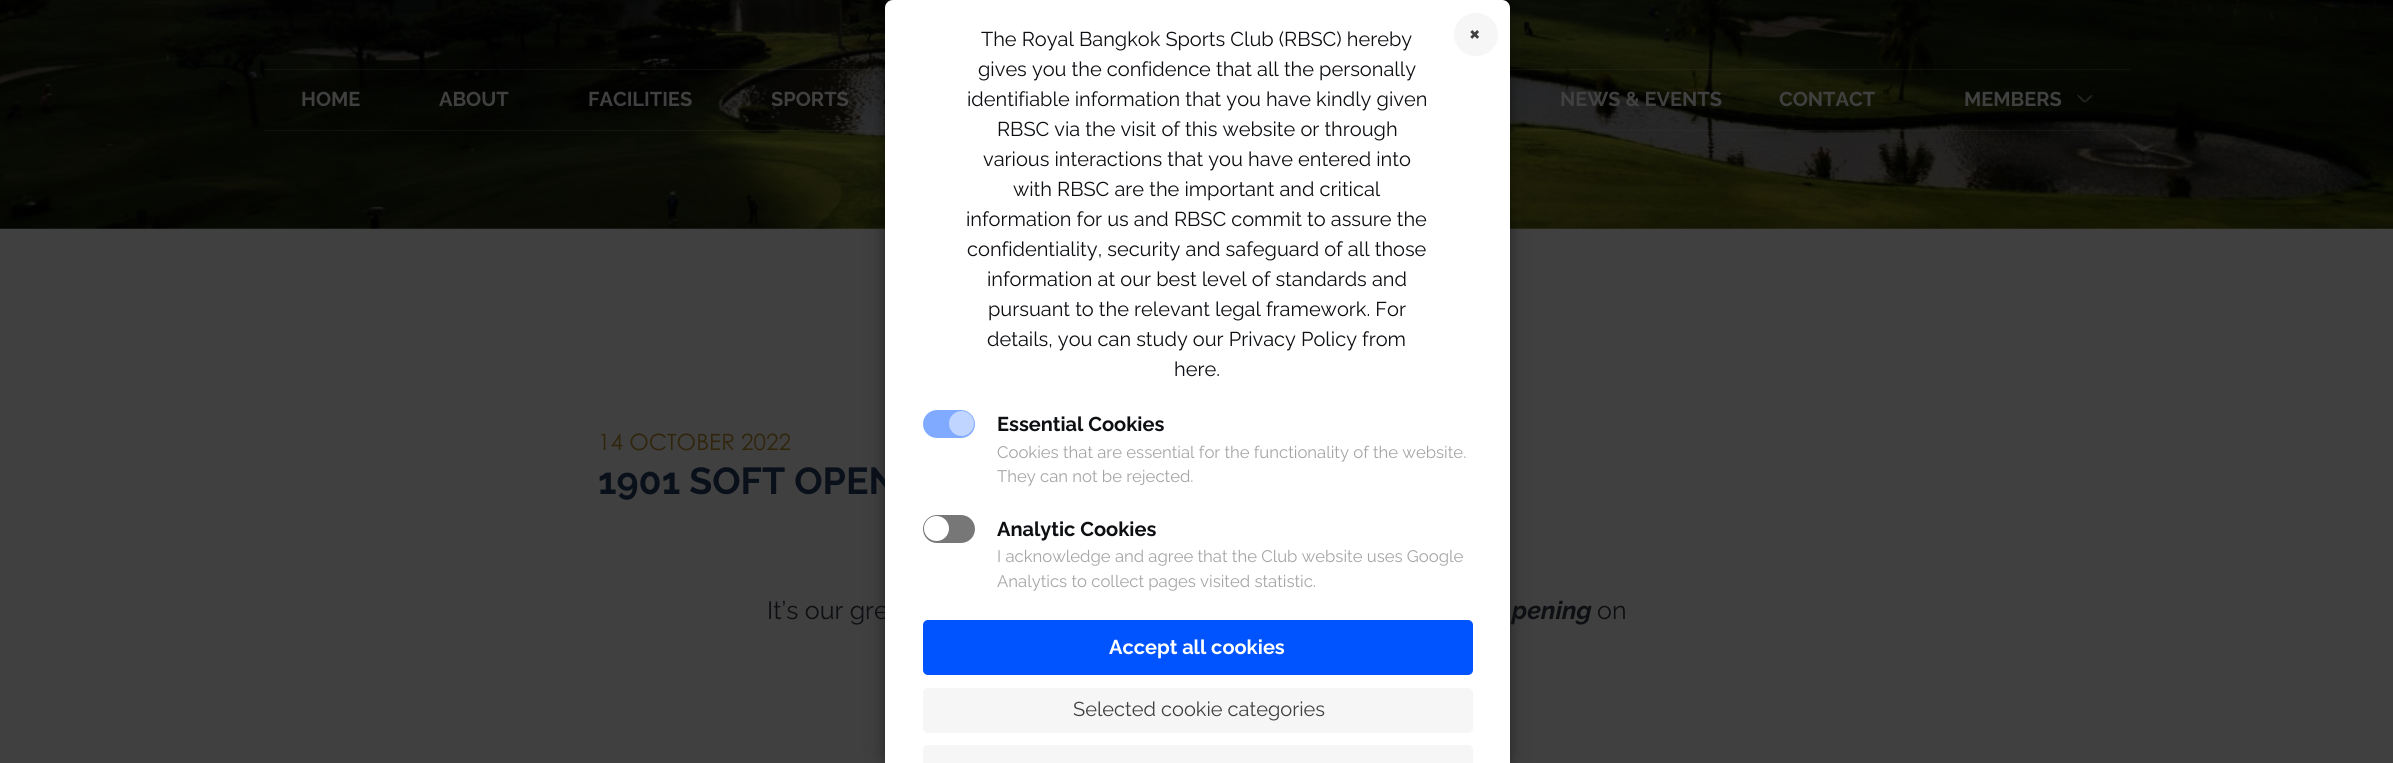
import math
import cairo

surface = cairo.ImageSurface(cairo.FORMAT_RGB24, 2393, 763)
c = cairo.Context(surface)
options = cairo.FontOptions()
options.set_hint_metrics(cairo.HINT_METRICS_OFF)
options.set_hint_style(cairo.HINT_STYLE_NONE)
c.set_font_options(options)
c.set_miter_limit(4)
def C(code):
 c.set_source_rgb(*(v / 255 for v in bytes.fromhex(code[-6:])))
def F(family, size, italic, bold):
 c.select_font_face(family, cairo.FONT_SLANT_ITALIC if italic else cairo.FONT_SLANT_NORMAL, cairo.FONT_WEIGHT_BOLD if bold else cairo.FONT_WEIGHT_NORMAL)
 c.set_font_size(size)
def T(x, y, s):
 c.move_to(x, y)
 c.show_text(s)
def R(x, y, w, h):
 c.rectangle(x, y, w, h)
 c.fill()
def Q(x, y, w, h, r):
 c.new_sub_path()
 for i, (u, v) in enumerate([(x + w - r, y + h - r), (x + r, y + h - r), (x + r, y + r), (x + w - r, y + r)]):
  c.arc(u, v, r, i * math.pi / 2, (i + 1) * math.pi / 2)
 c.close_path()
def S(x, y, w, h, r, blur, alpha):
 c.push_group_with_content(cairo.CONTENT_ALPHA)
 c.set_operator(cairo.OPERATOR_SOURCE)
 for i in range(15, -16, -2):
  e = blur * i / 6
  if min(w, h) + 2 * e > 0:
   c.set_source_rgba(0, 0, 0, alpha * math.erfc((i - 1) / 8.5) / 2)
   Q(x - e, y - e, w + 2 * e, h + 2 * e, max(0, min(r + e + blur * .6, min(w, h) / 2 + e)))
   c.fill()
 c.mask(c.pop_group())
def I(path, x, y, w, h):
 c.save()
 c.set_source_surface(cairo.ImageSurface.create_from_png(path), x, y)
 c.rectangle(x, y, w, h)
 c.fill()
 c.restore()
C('404040')
c.paint()
I('1.png',0,0,2393,229)
c.set_source_rgba(0.251,0.251,0.251,0.2)
R(264,69,621,1)
R(264,130,621,1)
R(1510,69,620,1)
R(1510,130,620,1)
C('000000')
S(885,0,625,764,8,12.5,.2)
S(885,0,625,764,8,6,.3)
F('Raleway',37.5,0,1)
C('0a101a')
T(598,494,'1901 SOFT OPEN')
F('Raleway',25,0,0)
C('0d0f12')
T(767,619,'It’s our gre')
C('ffffff')
c.new_path()
c.move_to(893,0)
c.line_to(1502,0)
c.curve_to(1506.5,0,1510,3.5,1510,8)
c.line_to(1510,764)
c.line_to(885,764)
c.line_to(885,8)
c.curve_to(885,3.5,888.5,0,893,0)
c.close_path()
c.fill()
C('f6f6f6')
Q(1454,13,44,43,21.5)
c.fill()
F('Raleway',24,0,1)
C('404040')
T(1469,41,'×')
C('0054ff')
Q(923,620,550,55,5)
c.fill()
F('Raleway',20,0,1)
C('ffffff')
T(1109,654,'Accept all cookies')
C('f6f6f6')
Q(923,688,550,45,5)
c.fill()
F('Raleway',20,0,0)
C('404040')
T(1073,716,'Selected cookie categories')
C('f6f6f6')
c.new_path()
c.move_to(928,745)
c.line_to(1468,745)
c.curve_to(1471,745,1473,747,1473,750)
c.line_to(1473,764)
c.line_to(923,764)
c.line_to(923,750)
c.curve_to(923,747,925,745,928,745)
c.close_path()
c.fill()
C('0d0f12')
T(981,46,'The Royal Bangkok Sports Club (RBSC) hereby')
T(978,76,'gives you the confidence that all the personally')
T(967,106,'identifiable information that you have kindly given')
T(997,136,'RBSC via the visit of this website or through')
T(983,166,'various interactions that you have entered into')
T(1013,196,'with RBSC are the important and critical')
T(966,226,'information for us and RBSC commit to assure the')
T(967,256,'confidentiality, security and safeguard of all those')
T(987,286,'information at our best level of standards and')
T(988,316,'pursuant to the relevant legal framework. For')
T(987,346,'details, you can study our Privacy Policy from')
T(1174,376,'here.')
C('80aaff')
Q(923,410,52,28,14)
c.fill()
C('c0d5ff')
c.arc(961.5,423.5,12.5,0,2 * math.pi)
c.fill()
F('Raleway',20,0,1)
C('0d0f12')
T(997,431,'Essential Cookies')
F('Raleway',16.7,0,0)
C('a5a5a5')
T(997,458,'Cookies that are essential for the functionality of the website.')
T(997,482,'They can not be rejected.')
C('777777')
Q(923,515,52,28,14)
c.fill()
C('ffffff')
c.arc(936.5,528.5,12.5,0,2 * math.pi)
c.fill()
F('Raleway',20,0,1)
C('0d0f12')
T(997,536,'Analytic Cookies')
F('Raleway',16.7,0,0)
C('a5a5a5')
T(997,562,'I acknowledge and agree that the Club website uses Google')
T(997,587,'Analytics to collect pages visited statistic.')
F('Raleway',20,0,1)
C('404040')
T(301,106,'HOME')
T(439,106,'ABOUT')
T(588,106,'FACILITIES')
T(771,106,'SPORTS')
T(1560,106,'NEWS & EVENTS')
T(1779,106,'CONTACT')
T(1964,106,'MEMBERS')
I('2.png',2077,95,16,8)
F('Century Gothic',22.5,0,0)
C('30250b')
T(598,450,'14 OCTOBER 2022')
F('Raleway',25,1,1)
C('0d0f12')
T(1512,619,'pening')
F('Raleway',25,0,0)
T(1597,619,'on')
surface.write_to_png('o.png')
